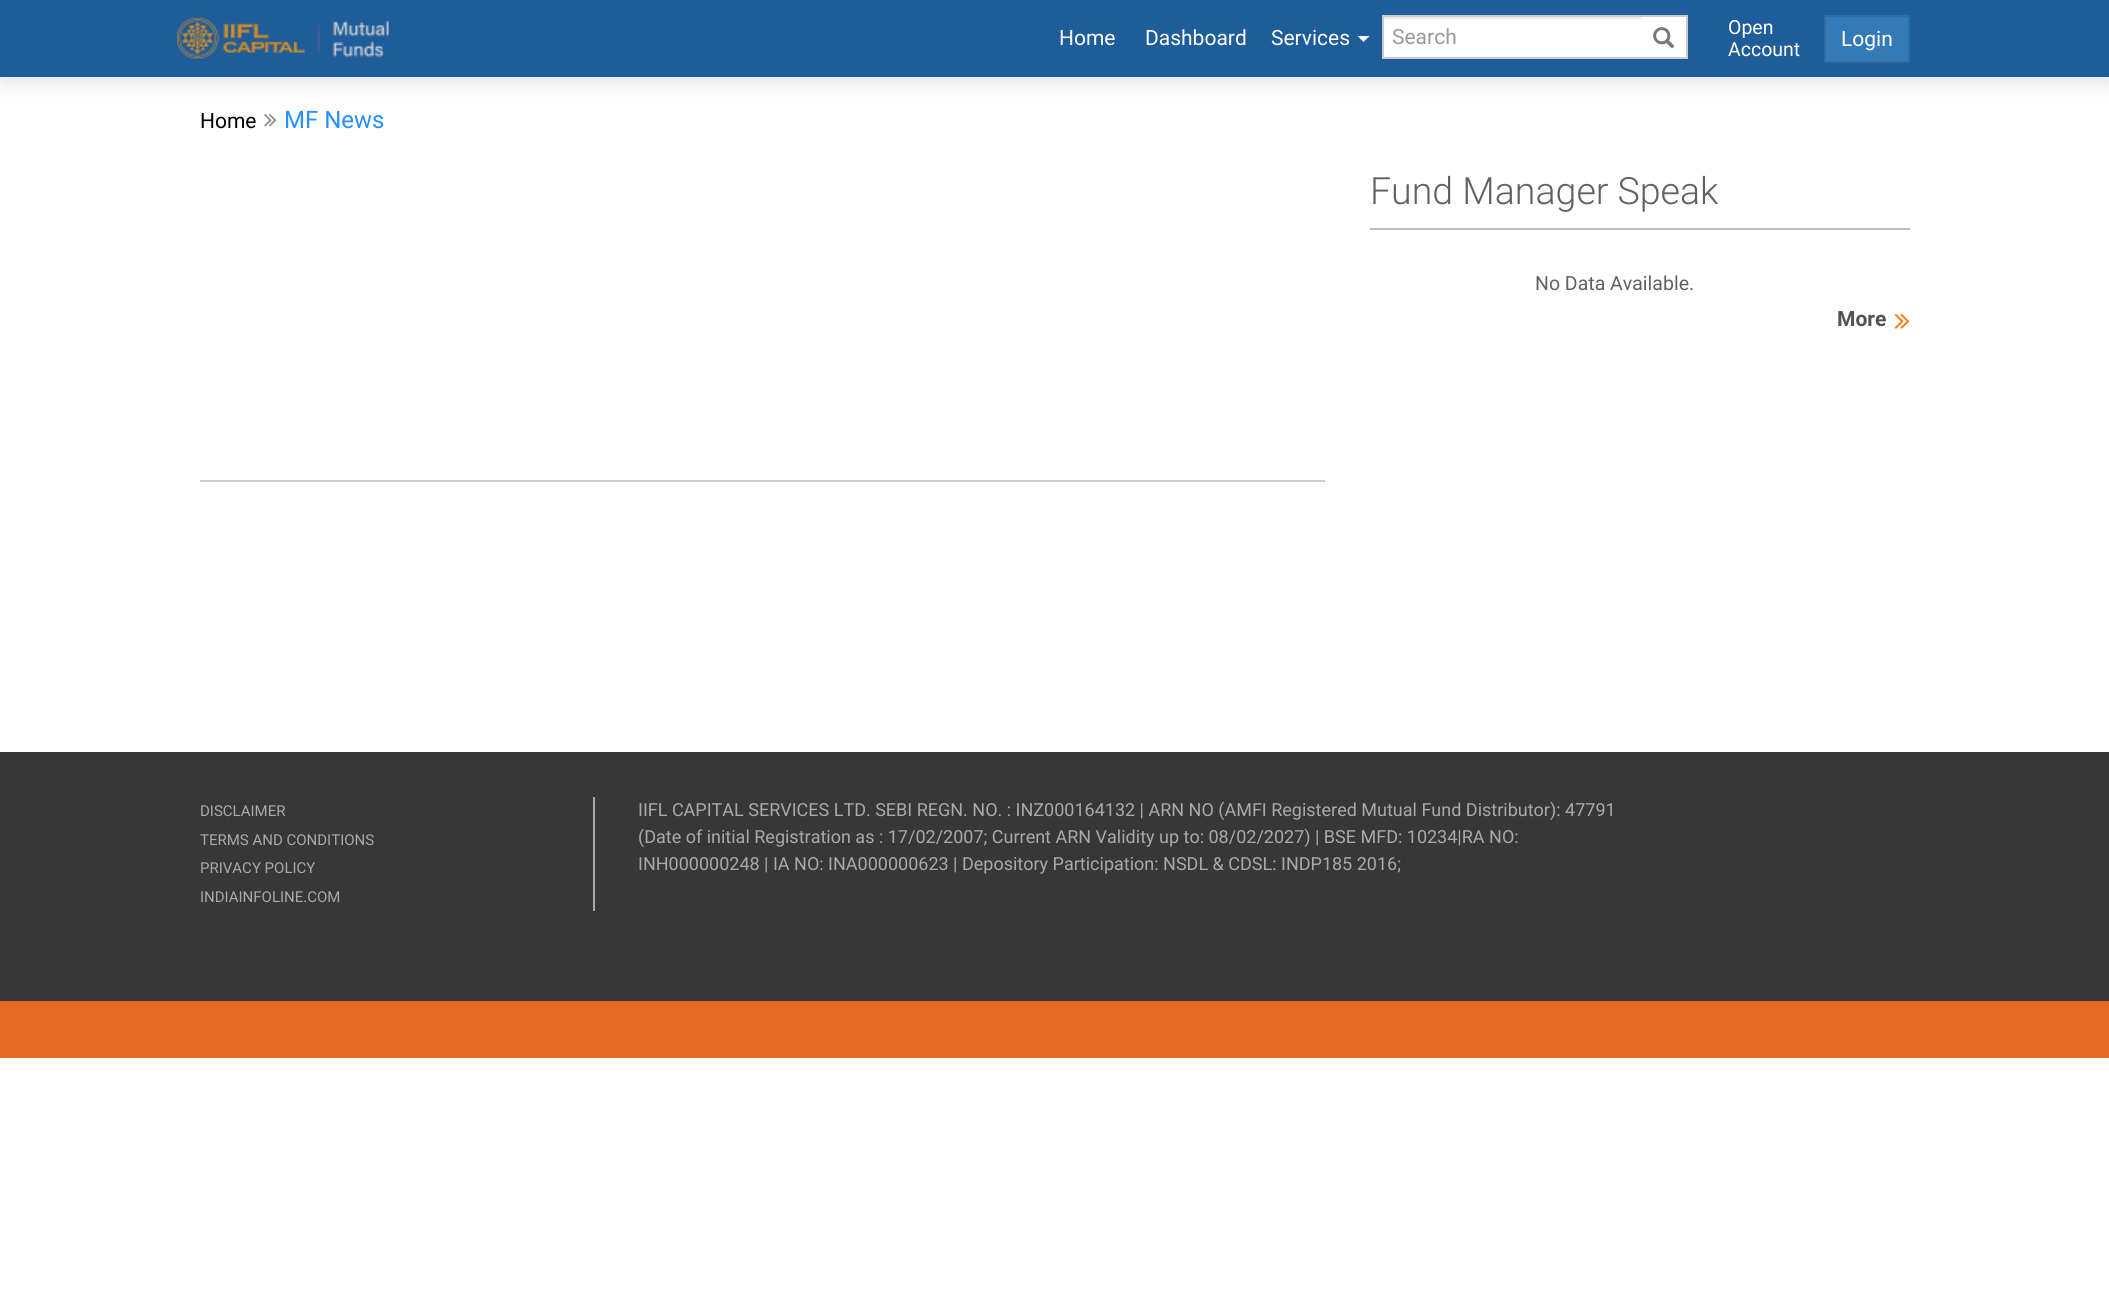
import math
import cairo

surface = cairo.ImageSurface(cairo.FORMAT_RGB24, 2109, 1309)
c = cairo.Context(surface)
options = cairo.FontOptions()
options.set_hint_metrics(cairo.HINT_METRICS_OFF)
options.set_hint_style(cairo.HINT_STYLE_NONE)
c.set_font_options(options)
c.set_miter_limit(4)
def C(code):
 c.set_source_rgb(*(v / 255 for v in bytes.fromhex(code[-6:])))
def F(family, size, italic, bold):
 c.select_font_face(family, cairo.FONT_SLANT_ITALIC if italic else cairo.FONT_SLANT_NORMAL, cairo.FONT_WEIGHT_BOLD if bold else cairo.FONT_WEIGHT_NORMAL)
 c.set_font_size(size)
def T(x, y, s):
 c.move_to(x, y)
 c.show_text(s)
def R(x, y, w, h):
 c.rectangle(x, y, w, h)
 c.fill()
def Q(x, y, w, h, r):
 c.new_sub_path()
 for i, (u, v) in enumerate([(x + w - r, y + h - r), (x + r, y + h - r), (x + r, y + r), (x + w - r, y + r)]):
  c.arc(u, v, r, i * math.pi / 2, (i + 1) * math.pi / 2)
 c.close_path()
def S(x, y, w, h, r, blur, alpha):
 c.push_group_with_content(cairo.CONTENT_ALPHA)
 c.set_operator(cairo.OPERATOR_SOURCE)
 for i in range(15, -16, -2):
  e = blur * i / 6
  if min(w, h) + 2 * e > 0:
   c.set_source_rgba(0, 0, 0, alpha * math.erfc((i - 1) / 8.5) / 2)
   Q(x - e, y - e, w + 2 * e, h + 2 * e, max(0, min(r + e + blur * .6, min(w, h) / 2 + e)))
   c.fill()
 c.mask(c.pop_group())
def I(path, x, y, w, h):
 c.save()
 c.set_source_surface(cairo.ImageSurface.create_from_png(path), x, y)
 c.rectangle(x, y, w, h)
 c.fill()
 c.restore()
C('ffffff')
c.paint()
I('3.png',264,114,13,13)
C('dfdfdf')
S(0,5,2109,76,0,11,1)
C('1f5d9a')
R(0,0,2109,77)
I('1.png',177,17,212,42)
F('Roboto',21,0,0)
C('ffffff')
T(1059,45,'Home')
T(1145,45,'Dashboard')
T(1271,45,'Services')
c.new_path()
c.move_to(1357.5,36)
c.line_to(1369.5,36)
c.line_to(1363.5,42)
c.close_path()
c.fill()
R(1641,17,45,40)
C('cccccc')
R(1382,15,306,2)
R(1686,15,2,44)
R(1382,57,306,2)
I('2.png',1653,27,22,22)
C('ffffff')
R(1384,19,257,38)
C('ececec')
R(1383,17,258,2)
C('cccccc')
R(1382,15,2,44)
C('999999')
T(1392,44,'Search')
F('Roboto',19.5,0,0)
C('ffffff')
T(1728,34,'Open')
T(1728,56,'Account')
C('337ab7')
c.rectangle(1825,16,84,46)
c.fill_preserve()
C('2e6da4')
c.stroke()
F('Roboto',21,0,0)
C('ffffff')
T(1841,46,'Login')
C('000000')
T(200,128,'Home')
F('Roboto',24,0,0)
C('2391ff')
T(284,128,'MF News')
C('bebebe')
R(1370,228,540,2)
F('Roboto Light',37.5,0,0)
C('616161')
T(1370,204,'Fund Manager Speak')
F('Roboto',19.5,0,0)
T(1535,290,'No Data Available.')
F('Roboto',21,0,1)
C('545353')
T(1837,326,'More')
I('4.png',1894,313,16,16)
C('d2cccc')
R(200,480,1125,2)
C('373737')
R(0,752,2109,249)
C('e56a24')
R(0,1001,2109,57)
C('a9a9a9')
R(593,797,2,114)
F('Roboto',15,0,0)
T(200,816,'DISCLAIMER')
T(200,845,'TERMS AND CONDITIONS')
T(200,873,'PRIVACY POLICY')
T(200,902,'INDIAINFOLINE.COM')
F('Roboto',18,0,0)
T(638,816,'IIFL CAPITAL SERVICES LTD. SEBI REGN. NO. : INZ000164132 | ARN NO (AMFI Registered Mutual Fund Distributor): 47791')
T(638,843,'(Date of initial Registration as : 17/02/2007; Current ARN Validity up to: 08/02/2027) | BSE MFD: 10234|RA NO:')
T(638,870,'INH000000248 | IA NO: INA000000623 | Depository Participation: NSDL & CDSL: INDP185 2016;')
surface.write_to_png('o.png')
